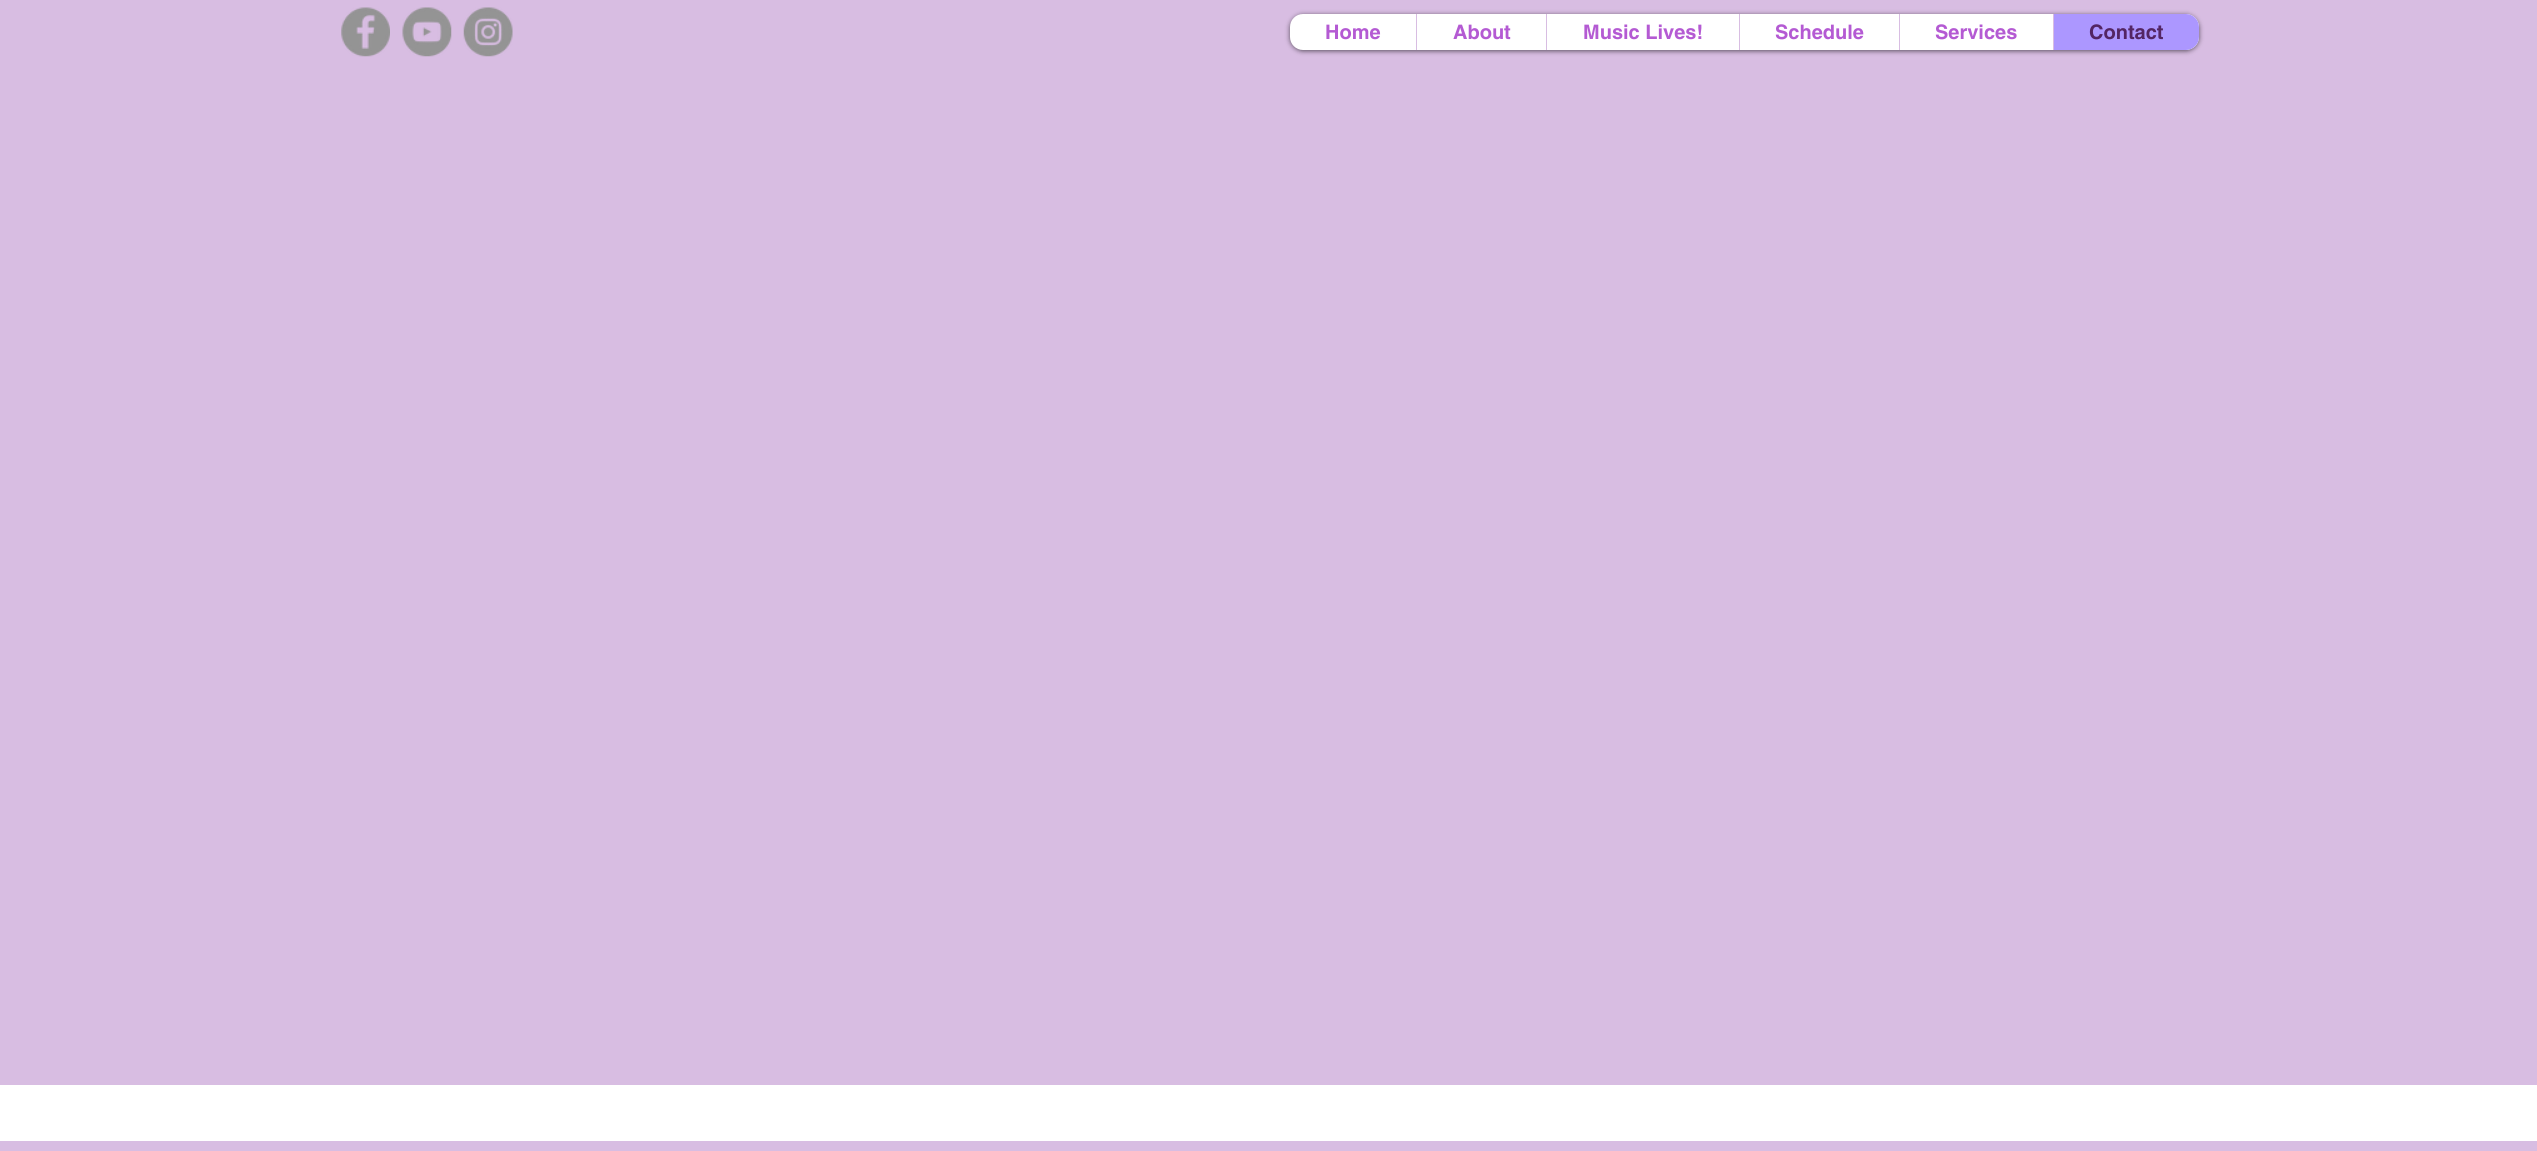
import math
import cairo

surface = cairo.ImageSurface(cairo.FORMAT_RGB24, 2537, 1151)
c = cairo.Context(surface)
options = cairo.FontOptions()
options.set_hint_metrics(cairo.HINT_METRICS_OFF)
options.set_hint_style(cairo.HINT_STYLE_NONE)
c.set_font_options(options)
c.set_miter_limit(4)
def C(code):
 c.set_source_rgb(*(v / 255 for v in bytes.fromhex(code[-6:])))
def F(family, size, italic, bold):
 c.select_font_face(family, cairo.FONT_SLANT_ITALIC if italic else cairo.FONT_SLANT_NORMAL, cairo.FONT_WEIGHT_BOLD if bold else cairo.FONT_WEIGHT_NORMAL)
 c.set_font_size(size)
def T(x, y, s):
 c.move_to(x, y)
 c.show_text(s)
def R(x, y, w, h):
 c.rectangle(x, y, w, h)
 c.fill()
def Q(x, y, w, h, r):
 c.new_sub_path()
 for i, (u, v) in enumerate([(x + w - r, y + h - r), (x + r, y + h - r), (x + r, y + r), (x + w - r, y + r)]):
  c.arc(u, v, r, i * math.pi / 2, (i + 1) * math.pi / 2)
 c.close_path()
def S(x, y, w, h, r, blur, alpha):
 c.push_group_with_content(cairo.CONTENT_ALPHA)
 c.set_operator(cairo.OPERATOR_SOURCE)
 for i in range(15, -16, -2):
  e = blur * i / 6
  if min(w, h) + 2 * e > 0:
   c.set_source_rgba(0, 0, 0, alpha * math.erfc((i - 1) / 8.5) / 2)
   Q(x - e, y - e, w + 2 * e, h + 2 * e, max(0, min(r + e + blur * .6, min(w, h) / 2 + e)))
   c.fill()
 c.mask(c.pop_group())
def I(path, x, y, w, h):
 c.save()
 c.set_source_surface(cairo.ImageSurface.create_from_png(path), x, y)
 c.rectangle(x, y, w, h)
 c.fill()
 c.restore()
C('d8bde2')
c.paint()
I('1.png',341,7,49,50)
I('2.png',402,7,50,50)
I('3.png',463,7,50,50)
C('000000')
S(1290,15,909,36,13,2.5,.6)
C('ffffff')
Q(1290,14,909,36,13)
c.fill()
F('helvetica',20,0,1)
C('b45ad3')
T(1325,39,'Home')
C('d8bde2')
R(1416,14,1,36)
C('b45ad3')
T(1453,39,'About')
C('d8bde2')
R(1546,14,1,36)
C('b45ad3')
T(1583,39,'Music Lives!')
C('d8bde2')
R(1739,14,1,36)
C('b45ad3')
T(1775,39,'Schedule')
C('d8bde2')
R(1899,14,1,36)
C('b45ad3')
T(1935,39,'Services')
C('ac97ff')
c.new_path()
c.move_to(2053,14)
c.line_to(2186,14)
c.curve_to(2193,14,2199,20,2199,27)
c.line_to(2199,37)
c.curve_to(2199,44,2193,50,2186,50)
c.line_to(2053,50)
c.close_path()
c.fill()
C('d8bde2')
R(2053,14,1,36)
C('532563')
T(2089,39,'Contact')
C('ffffff')
R(0,1085,2537,56)
surface.write_to_png('o.png')
